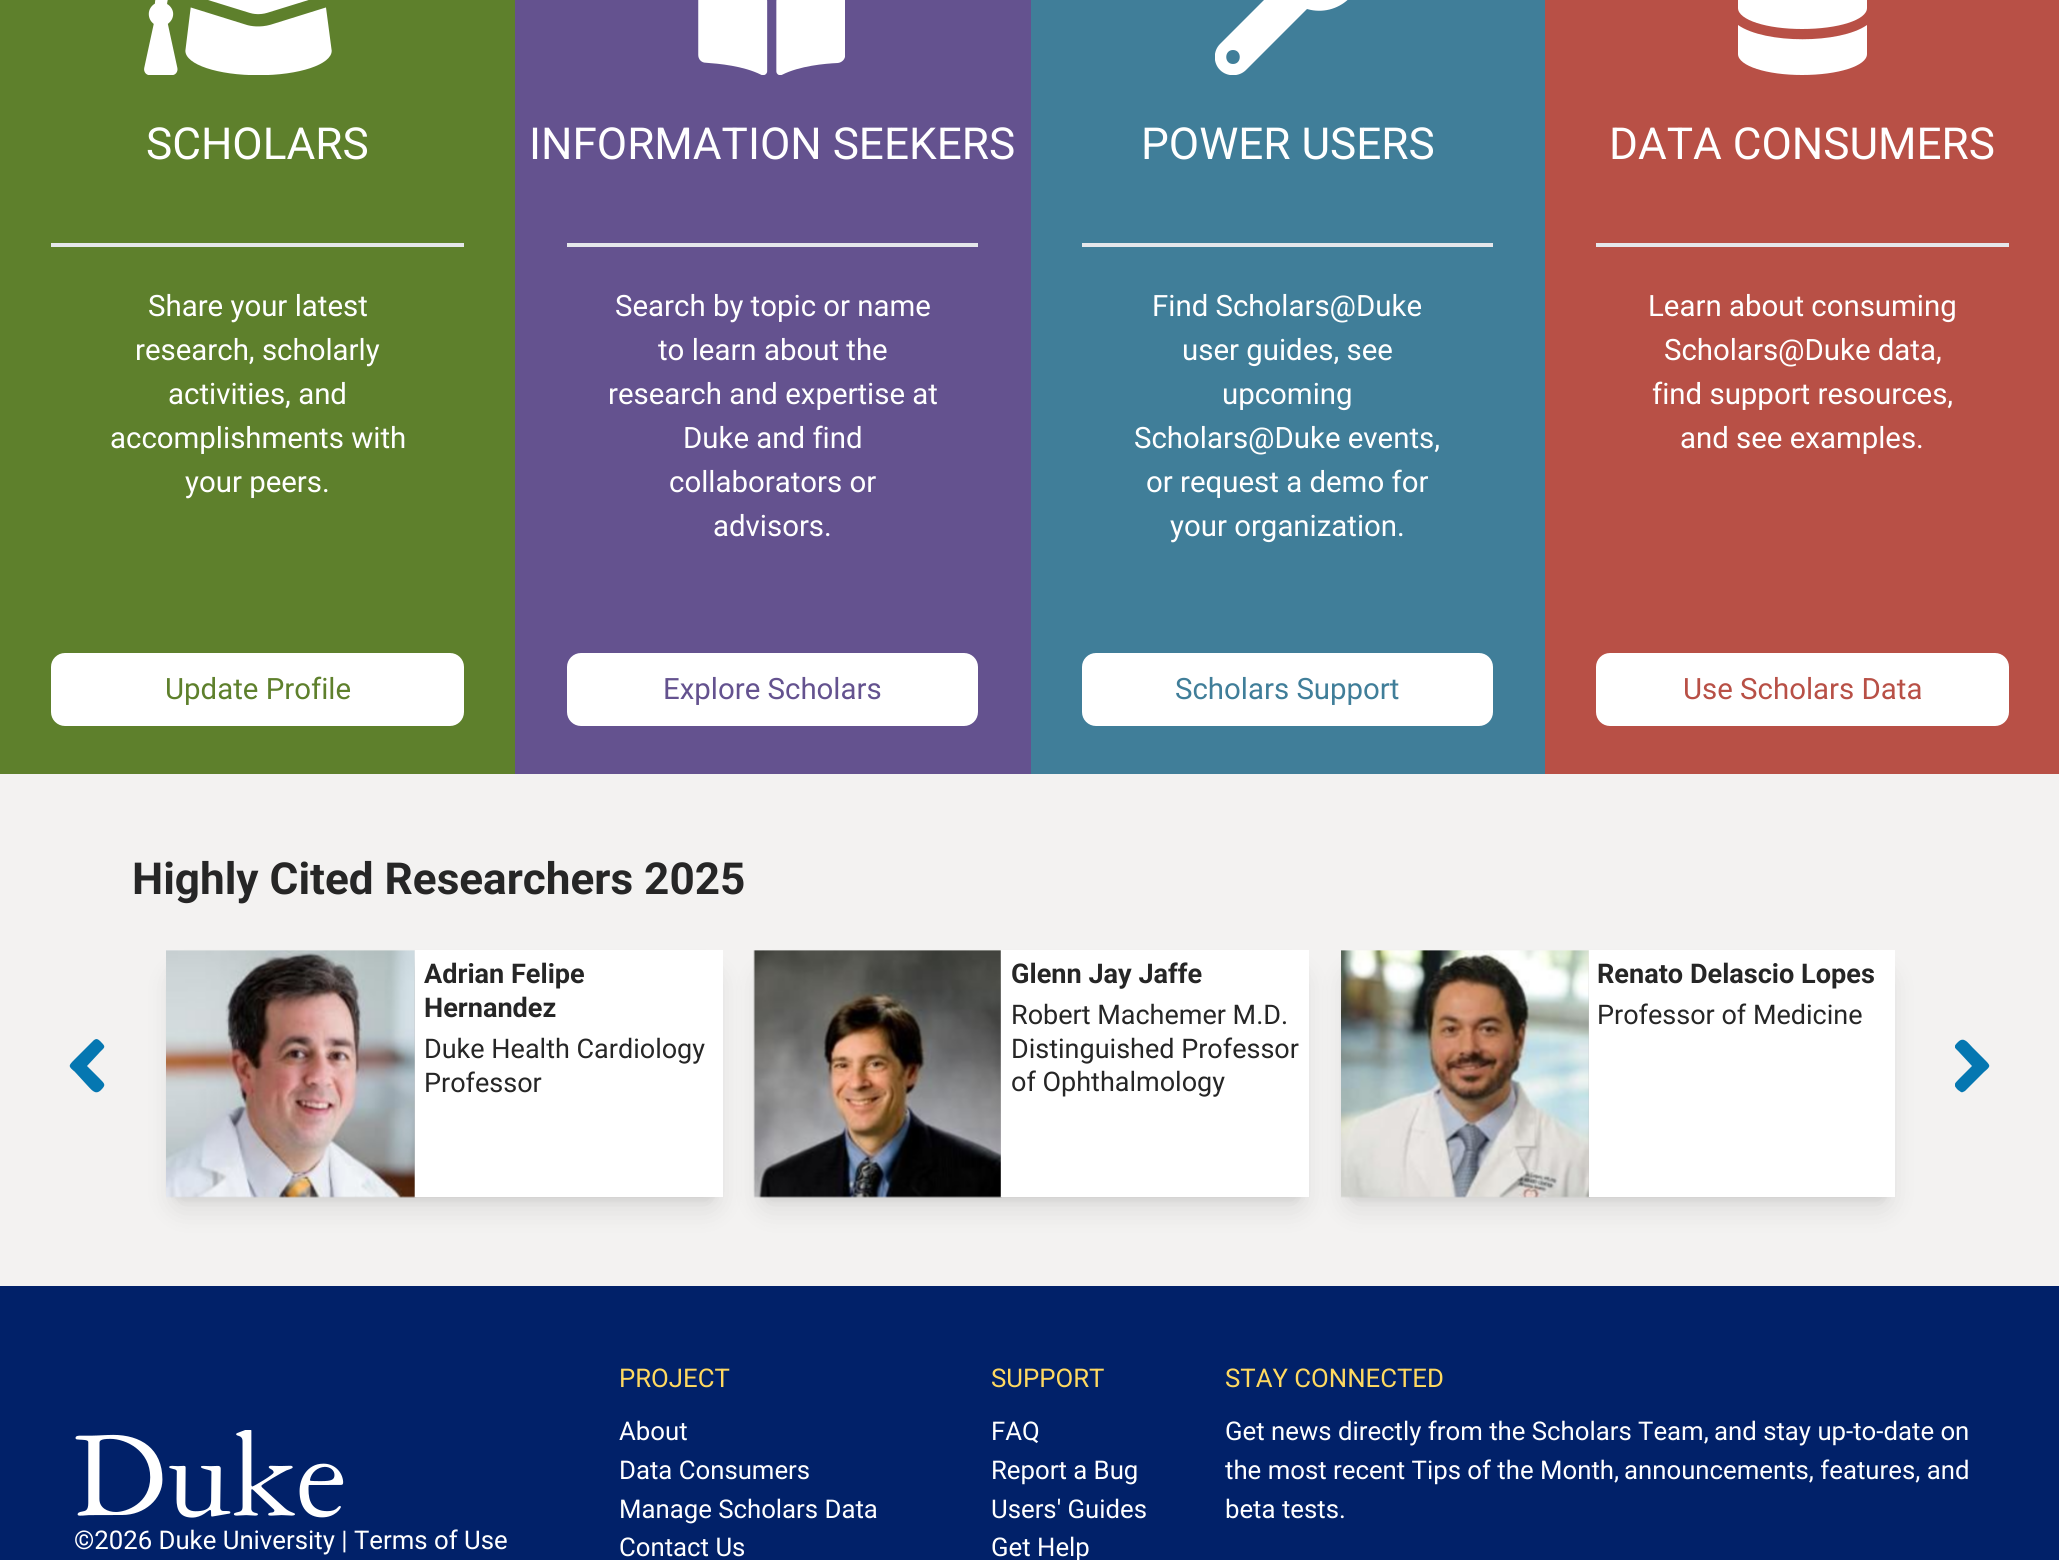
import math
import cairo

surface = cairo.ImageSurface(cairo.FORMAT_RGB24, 2059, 1560)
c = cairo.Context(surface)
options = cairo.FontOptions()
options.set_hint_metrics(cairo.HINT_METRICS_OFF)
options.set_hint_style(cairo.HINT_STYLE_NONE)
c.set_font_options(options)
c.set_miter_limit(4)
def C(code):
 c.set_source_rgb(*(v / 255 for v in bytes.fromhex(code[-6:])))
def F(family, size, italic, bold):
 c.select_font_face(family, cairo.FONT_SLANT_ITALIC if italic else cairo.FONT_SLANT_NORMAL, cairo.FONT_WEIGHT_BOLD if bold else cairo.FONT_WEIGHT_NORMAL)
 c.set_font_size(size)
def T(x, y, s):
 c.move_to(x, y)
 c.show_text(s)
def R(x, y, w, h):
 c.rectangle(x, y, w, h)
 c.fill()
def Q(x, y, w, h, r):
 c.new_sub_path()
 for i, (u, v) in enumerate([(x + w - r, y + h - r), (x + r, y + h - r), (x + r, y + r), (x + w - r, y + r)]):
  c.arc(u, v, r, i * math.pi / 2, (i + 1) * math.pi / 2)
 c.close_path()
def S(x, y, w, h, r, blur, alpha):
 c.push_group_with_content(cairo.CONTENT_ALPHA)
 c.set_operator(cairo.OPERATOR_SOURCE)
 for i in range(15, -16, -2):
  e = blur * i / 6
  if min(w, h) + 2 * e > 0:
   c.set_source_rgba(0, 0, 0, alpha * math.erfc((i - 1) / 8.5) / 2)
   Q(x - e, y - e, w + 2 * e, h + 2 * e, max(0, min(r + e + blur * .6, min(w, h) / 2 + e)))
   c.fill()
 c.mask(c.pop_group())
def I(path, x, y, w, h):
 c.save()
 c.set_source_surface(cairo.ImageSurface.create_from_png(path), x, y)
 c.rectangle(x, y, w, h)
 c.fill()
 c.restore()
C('f3f2f1')
c.paint()
C('5e802c')
R(0,0,515,774)
I('1.png',144,0,188,75)
F('Roboto',44.1,0,0)
C('ffffff')
T(146,159,'SCHOLARS')
C('e5e7eb')
R(51,243,413,4)
F('Roboto',29.4,0,0)
C('ffffff')
T(148,316,'Share your latest')
T(135,360,'research, scholarly')
T(168,404,'activities, and')
T(110,448,'accomplishments with')
T(185,492,'your peers.')
Q(51,653,413,73,14)
c.fill()
C('5e802c')
T(165,699,'Update Profile')
C('64528f')
R(515,0,516,774)
I('2.png',698,0,147,75)
F('Roboto',44.1,0,0)
C('ffffff')
T(529,159,'INFORMATION SEEKERS')
C('e5e7eb')
R(567,243,411,4)
F('Roboto',29.4,0,0)
C('ffffff')
T(615,316,'Search by topic or name')
T(658,360,'to learn about the')
T(608,404,'research and expertise at')
T(683,448,'Duke and find')
T(669,492,'collaborators or')
T(713,536,'advisors.')
Q(567,653,411,73,14)
c.fill()
C('64528f')
T(663,699,'Explore Scholars')
C('407e99')
R(1031,0,514,774)
c.save()
c.rectangle(1215,0,147,75)
c.clip()
C('ffffff')
c.new_path()
c.move_to(1360,-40)
c.curve_to(1360,-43,1357,-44,1355,-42)
c.line_to(1333,-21)
c.line_to(1314,-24)
c.line_to(1311,-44)
c.line_to(1325,-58)
c.curve_to(1331,-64,1339,-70,1325,-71)
c.curve_to(1295,-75,1272,-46,1281,-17)
c.line_to(1220,44)
c.curve_to(1213,51,1213,63,1220,70)
c.curve_to(1227,77,1239,77,1246,70)
c.line_to(1307,9)
c.curve_to(1338,18,1368,-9,1360,-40)
c.close_path()
c.move_to(1233,64)
c.curve_to(1224,64,1224,50,1233,50)
c.curve_to(1242,50,1242,64,1233,64)
c.close_path()
c.fill()
c.restore()
F('Roboto',44.1,0,0)
C('ffffff')
T(1141,159,'POWER USERS')
C('e5e7eb')
R(1082,243,411,4)
F('Roboto',29.4,0,0)
C('ffffff')
T(1152,316,'Find Scholars@Duke')
T(1182,360,'user guides, see')
T(1222,404,'upcoming')
T(1134,448,'Scholars@Duke events,')
T(1146,492,'or request a demo for')
T(1170,536,'your organization.')
Q(1082,653,411,73,14)
c.fill()
C('407e99')
T(1175,699,'Scholars Support')
C('b85046')
R(1545,0,514,774)
C('ffffff')
c.new_path()
c.move_to(1867,-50)
c.curve_to(1867,-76,1754,-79,1739,-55)
c.line_to(1738,-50)
c.curve_to(1737,-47,1738,-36,1739,-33)
c.curve_to(1753,-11,1852,-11,1866,-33)
c.curve_to(1868,-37,1867,-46,1867,-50)
c.close_path()
c.move_to(1867,-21)
c.curve_to(1840,-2,1765,-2,1738,-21)
c.line_to(1738,8)
c.curve_to(1738,20,1767,29,1802,29)
c.curve_to(1838,29,1867,20,1867,8)
c.close_path()
c.move_to(1867,25)
c.curve_to(1840,44,1765,44,1738,25)
c.line_to(1738,54)
c.curve_to(1738,66,1767,75,1802,75)
c.curve_to(1838,75,1867,66,1867,54)
c.close_path()
c.fill()
F('Roboto',44.1,0,0)
T(1609,159,'DATA CONSUMERS')
C('e5e7eb')
R(1596,243,413,4)
F('Roboto',29.4,0,0)
C('ffffff')
T(1648,316,'Learn about consuming')
T(1664,360,'Scholars@Duke data,')
T(1652,404,'find support resources,')
T(1680,448,'and see examples.')
Q(1596,653,413,73,14)
c.fill()
C('b85046')
T(1683,699,'Use Scholars Data')
F('Roboto',44.1,0,1)
C('262626')
T(132,894,'Highly Cited Researchers 2025')
C('0577b1')
c.new_path()
c.move_to(94,1040)
c.line_to(96,1039)
c.curve_to(98,1039,99,1040,101,1042)
c.curve_to(106,1047,105,1047,100,1052)
c.line_to(87,1066)
c.line_to(100,1079)
c.curve_to(105,1084,106,1085,101,1090)
c.curve_to(95,1096,91,1089,86,1084)
c.line_to(75,1072)
c.curve_to(68,1066,68,1066,75,1059)
c.close_path()
c.fill()
C('000000')
S(173,964,543,233,7,5,.1)
S(172,973,546,236,9,13,.1)
I('3.png',166,950,250,248)
C('ffffff')
R(415,950,308,247)
F('Roboto',27.1,0,1)
C('262626')
T(424,983,'Adrian Felipe')
T(424,1017,'Hernandez')
F('Roboto',27,0,0)
T(424,1058,'Duke Health Cardiology')
T(424,1092,'Professor')
C('000000')
S(761,964,541,233,7,5,.1)
S(760,973,544,236,9,13,.1)
I('4.png',753,950,249,248)
C('ffffff')
R(1001,950,308,247)
F('Roboto',27.1,0,1)
C('262626')
T(1011,983,'Glenn Jay Jaffe')
F('Roboto',27,0,0)
T(1011,1024,'Robert Machemer M.D.')
T(1011,1058,'Distinguished Professor')
T(1011,1091,'of Ophthalmology')
C('000000')
S(1348,964,540,233,7,5,.1)
S(1346,973,544,236,9,13,.1)
I('5.png',1341,950,249,248)
C('ffffff')
R(1589,950,306,247)
F('Roboto',27.1,0,1)
C('262626')
T(1597,983,'Renato Delascio Lopes')
F('Roboto',27,0,0)
T(1597,1024,'Professor of Medicine')
c.save()
c.rectangle(1955,1022,35,88)
c.clip()
C('0577b1')
c.new_path()
c.move_to(1965,1091)
c.line_to(1963,1092)
c.curve_to(1961,1093,1960,1091,1958,1090)
c.curve_to(1953,1085,1954,1084,1959,1079)
c.line_to(1972,1066)
c.line_to(1959,1052)
c.curve_to(1954,1047,1953,1047,1958,1042)
c.curve_to(1964,1036,1968,1043,1973,1048)
c.line_to(1984,1059)
c.curve_to(1991,1066,1991,1066,1984,1072)
c.close_path()
c.fill()
c.restore()
C('012169')
R(0,1286,2059,274)
F('Roboto',25.75,0,0)
C('ffd960')
T(619,1387,'PROJECT')
C('ffffff')
T(619,1440,'About')
T(619,1479,'Data Consumers')
T(619,1518,'Manage Scholars Data')
T(619,1556,'Contact Us')
C('ffd960')
T(991,1387,'SUPPORT')
C('ffffff')
T(991,1440,'FAQ')
T(991,1479,'Report a Bug')
T(991,1518,'Users\' Guides')
T(991,1556,'Get Help')
C('ffd960')
T(1225,1387,'STAY CONNECTED')
C('ffffff')
T(1225,1440,'Get news directly from the Scholars Team,')
T(1714,1440,'and stay up-to-date on')
T(1225,1479,'the most recent Tips of the Month,')
T(1624,1479,'announcements, features, and')
T(1225,1518,'beta tests.')
I('6.png',75,1430,269,88)
T(74,1549,'©2026 Duke University | Terms of Use')
surface.write_to_png('o.png')
